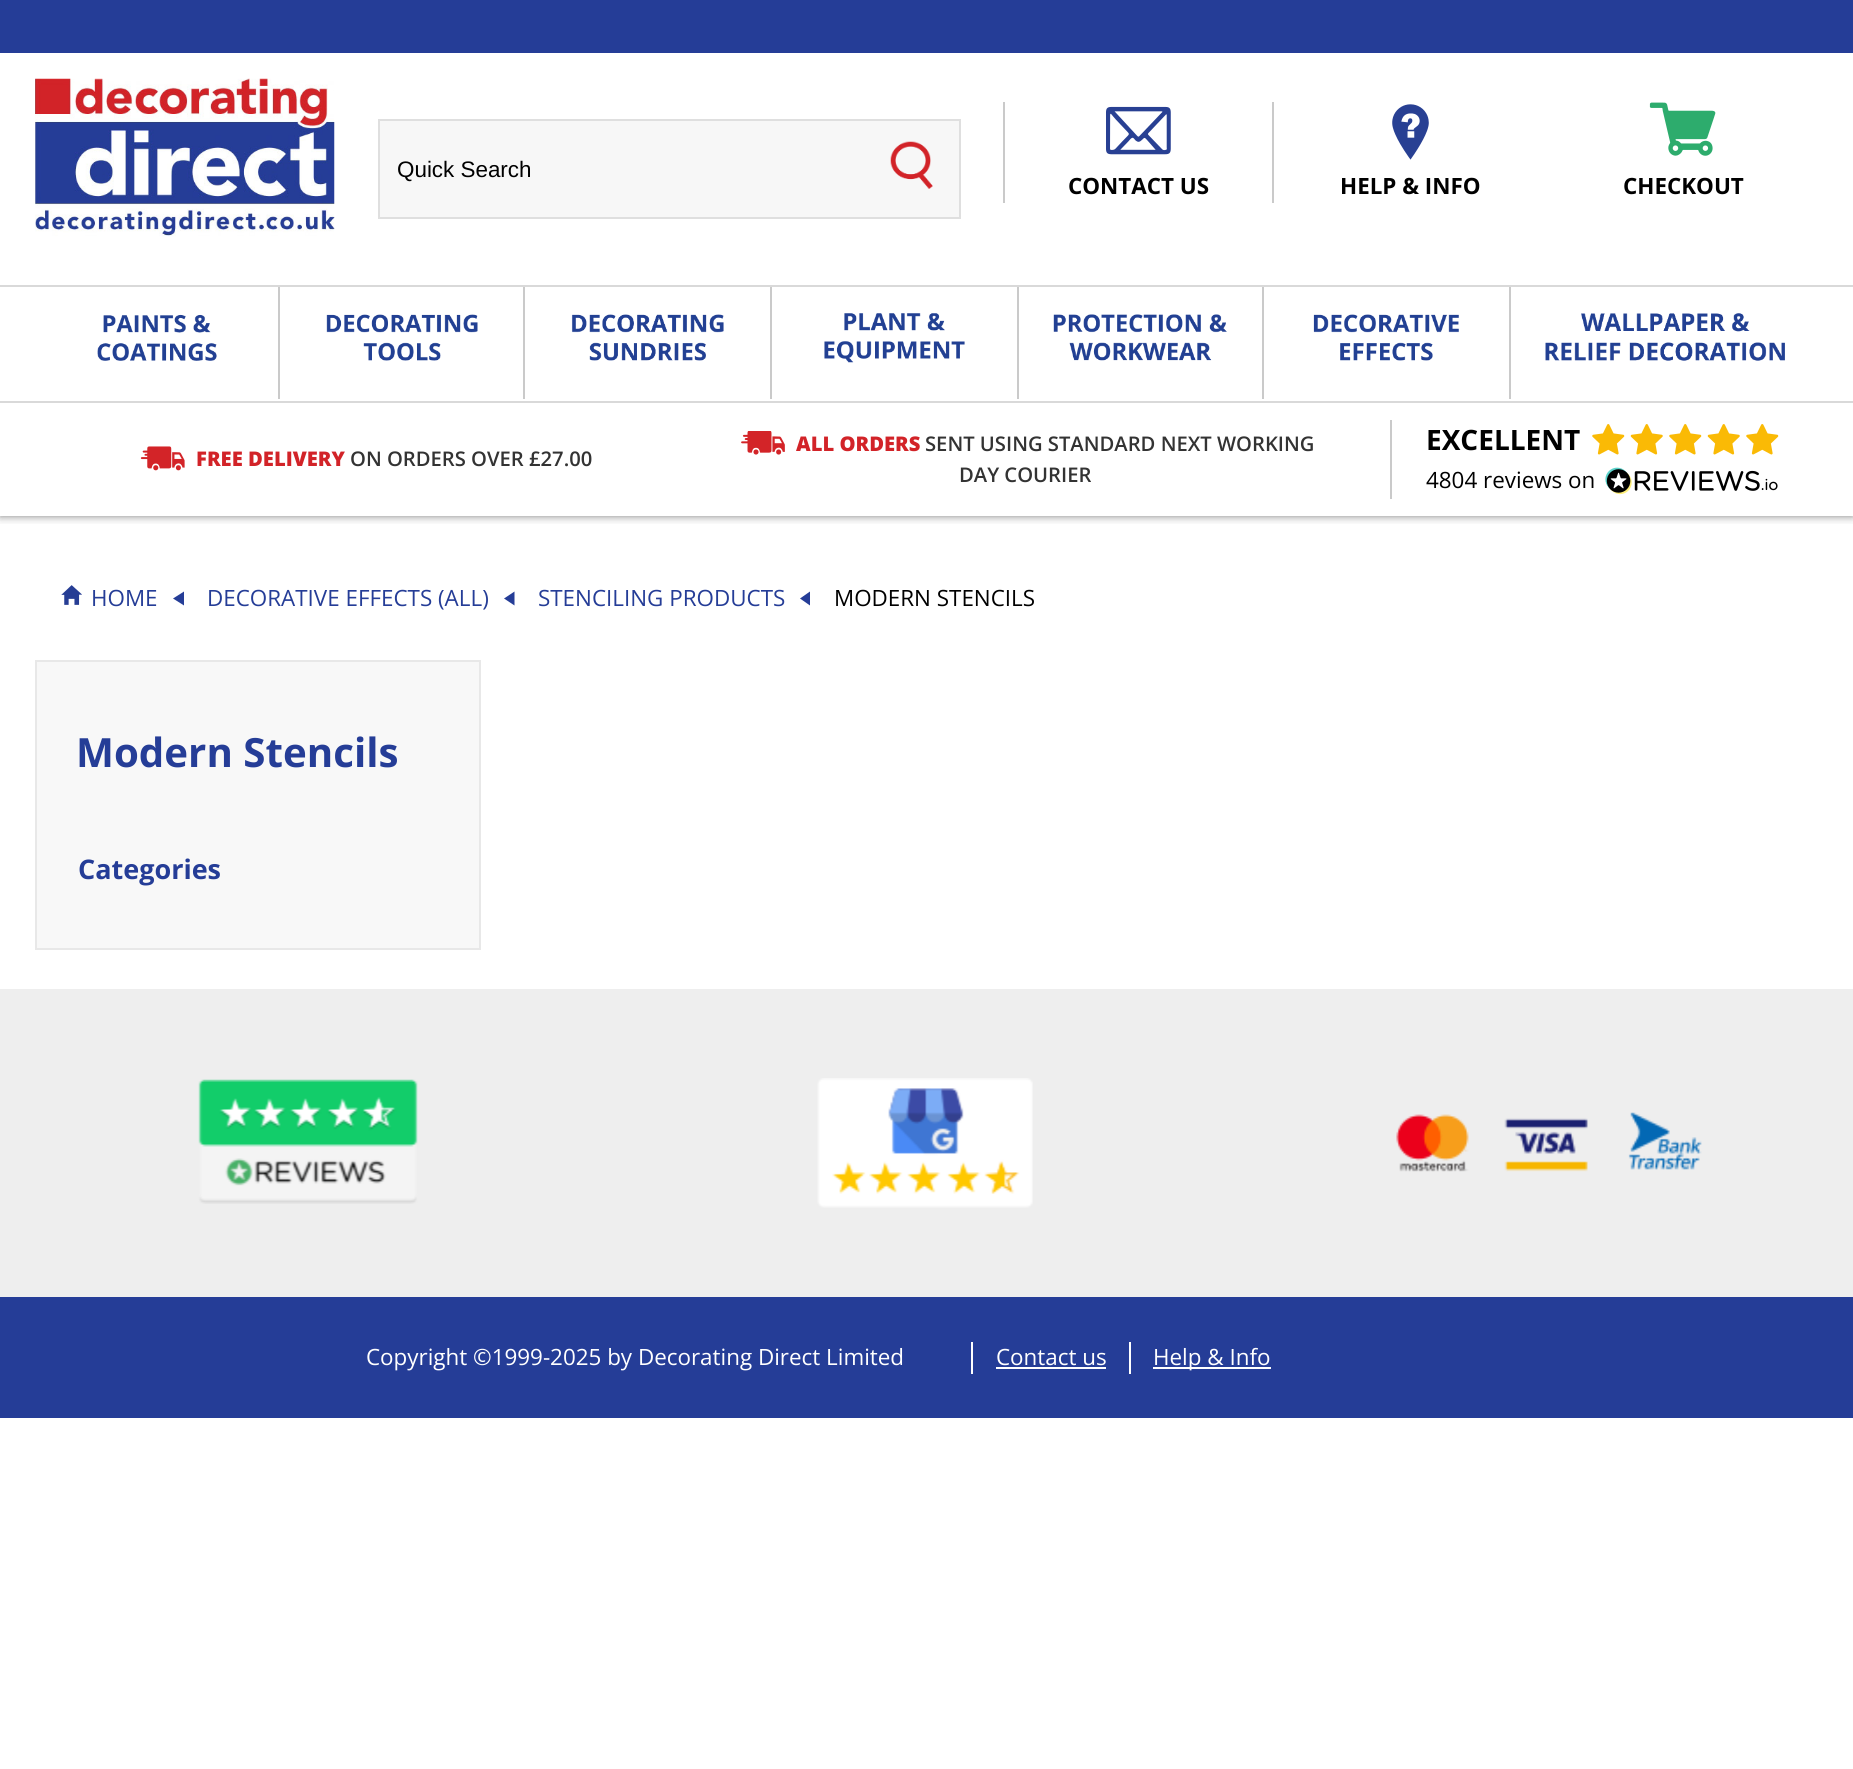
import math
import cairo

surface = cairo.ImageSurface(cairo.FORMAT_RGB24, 1853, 1769)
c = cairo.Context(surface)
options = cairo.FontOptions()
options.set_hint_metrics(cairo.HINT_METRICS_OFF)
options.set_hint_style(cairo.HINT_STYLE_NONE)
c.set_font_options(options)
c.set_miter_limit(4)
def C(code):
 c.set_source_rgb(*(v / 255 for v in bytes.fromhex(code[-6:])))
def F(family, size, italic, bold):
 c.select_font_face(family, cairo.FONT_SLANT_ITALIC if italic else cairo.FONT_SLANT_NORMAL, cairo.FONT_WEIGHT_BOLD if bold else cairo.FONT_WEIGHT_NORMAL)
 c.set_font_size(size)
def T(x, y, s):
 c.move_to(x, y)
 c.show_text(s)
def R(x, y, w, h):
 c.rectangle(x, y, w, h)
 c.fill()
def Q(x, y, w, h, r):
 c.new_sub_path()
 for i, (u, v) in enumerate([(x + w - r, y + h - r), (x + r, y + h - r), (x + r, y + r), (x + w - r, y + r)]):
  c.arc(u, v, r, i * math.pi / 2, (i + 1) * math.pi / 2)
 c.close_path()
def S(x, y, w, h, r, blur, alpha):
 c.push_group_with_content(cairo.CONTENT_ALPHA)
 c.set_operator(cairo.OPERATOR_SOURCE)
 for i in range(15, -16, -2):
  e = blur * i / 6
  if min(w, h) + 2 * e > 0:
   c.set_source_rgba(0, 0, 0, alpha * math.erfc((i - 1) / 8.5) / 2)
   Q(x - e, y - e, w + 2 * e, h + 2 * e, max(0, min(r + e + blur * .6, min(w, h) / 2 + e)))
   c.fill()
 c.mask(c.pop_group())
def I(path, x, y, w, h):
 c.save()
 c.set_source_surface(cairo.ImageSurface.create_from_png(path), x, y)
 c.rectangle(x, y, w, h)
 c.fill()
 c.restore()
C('ffffff')
c.paint()
C('253d97')
R(0,0,1853,53)
c.save()
c.rectangle(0,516,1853,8)
c.clip()
C('000000')
S(0,403,1853,113,0,4.5,.5)
c.restore()
C('ffffff')
R(0,394,1853,7)
C('d9d9d9')
R(0,401,1853,2)
I('1.png',35,78,300,159)
C('f7f7f7')
c.rectangle(379,120,581,98)
c.fill_preserve()
C('dfdfdf')
c.stroke()
F('Liberation Sans',22.4,0,0)
C('000000')
T(397,177,'Quick Search')
I('2.png',890,141,43,48)
I('3.png',1106,106,65,49)
C('cacaca')
R(1272,102,2,101)
R(1003,102,2,101)
F('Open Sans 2',22.4,0,1)
C('000000')
T(1068,194,'CONTACT US')
I('4.png',1392,104,37,56)
T(1340,194,'HELP & INFO')
I('5.png',1649,102,67,54)
T(1623,194,'CHECKOUT')
C('d9d9d9')
R(0,285,1853,2)
C('cacaca')
R(278,287,2,112)
I('6.png',97,314,120,47)
R(523,287,2,112)
I('7.png',326,314,152,47)
R(770,287,2,112)
I('8.png',571,314,153,47)
R(1017,287,2,112)
I('9.png',824,313,141,50)
R(1262,287,2,112)
I('10.png',1053,314,174,47)
R(1509,287,2,112)
I('11.png',1313,314,146,47)
I('12.png',1545,313,240,48)
I('13.png',140,446,45,25)
F('Open Sans ExtraBold',20.2,0,0)
C('d22328')
T(196,466,'FREE DELIVERY')
F('Open Sans SemiBold',20.2,0,0)
C('333333')
T(350,466,'ON ORDERS OVER £27.00')
I('14.png',741,431,44,24)
F('Open Sans ExtraBold',20.2,0,0)
C('d22328')
T(796,451,'ALL ORDERS')
F('Open Sans SemiBold',20.2,0,0)
C('333333')
T(925,451,'SENT USING STANDARD NEXT WORKING')
T(959,482,'DAY COURIER')
C('cacaca')
R(1390,420,2,79)
F('Open Sans',28,0,1)
C('000000')
T(1426,450,'EXCELLENT')
I('15.png',1592,424,33,31)
I('16.png',1630,424,33,31)
I('15.png',1669,424,33,31)
I('16.png',1707,424,33,31)
I('15.png',1746,424,33,31)
F('Open Sans',22.4,0,0)
T(1426,488,'4804 reviews on')
I('17.png',1605,467,173,28)
I('18.png',61,585,21,20)
C('253d97')
T(91,606,'HOME')
c.new_path()
c.move_to(184,591.5)
c.line_to(184,605.5)
c.line_to(173,598.5)
c.close_path()
c.fill()
T(207,606,'DECORATIVE EFFECTS (ALL)')
c.new_path()
c.move_to(514.5,591.5)
c.line_to(514.5,605.5)
c.line_to(504,598.5)
c.close_path()
c.fill()
T(538,606,'STENCILING PRODUCTS')
c.new_path()
c.move_to(810,591.5)
c.line_to(810,605.5)
c.line_to(800,598.5)
c.close_path()
c.fill()
C('000000')
T(834,606,'MODERN STENCILS')
C('f8f8f8')
c.rectangle(36,661,444,288)
c.fill_preserve()
C('e8e8e8')
c.stroke()
F('Open Sans',40.25,0,1)
C('253d97')
T(76,767,'Modern Stencils')
F('Open Sans',27,0,1)
T(78,879,'Categories')
C('eeeeee')
R(0,989,1853,308)
I('19.png',198,1079,220,125)
I('20.png',817,1078,216,130)
I('21.png',1396,1112,306,60)
C('253d97')
R(0,1297,1853,121)
F('Open Sans',22.4,0,0)
C('ffffff')
T(366,1365,'Copyright ©1999-2025 by Decorating Direct Limited')
R(971,1342,2,32)
T(996,1365,'Contact us')
R(996,1367,110,2)
R(1129,1342,2,32)
R(1153,1367,118,2)
T(1153,1365,'Help & Info')
surface.write_to_png('o.png')
